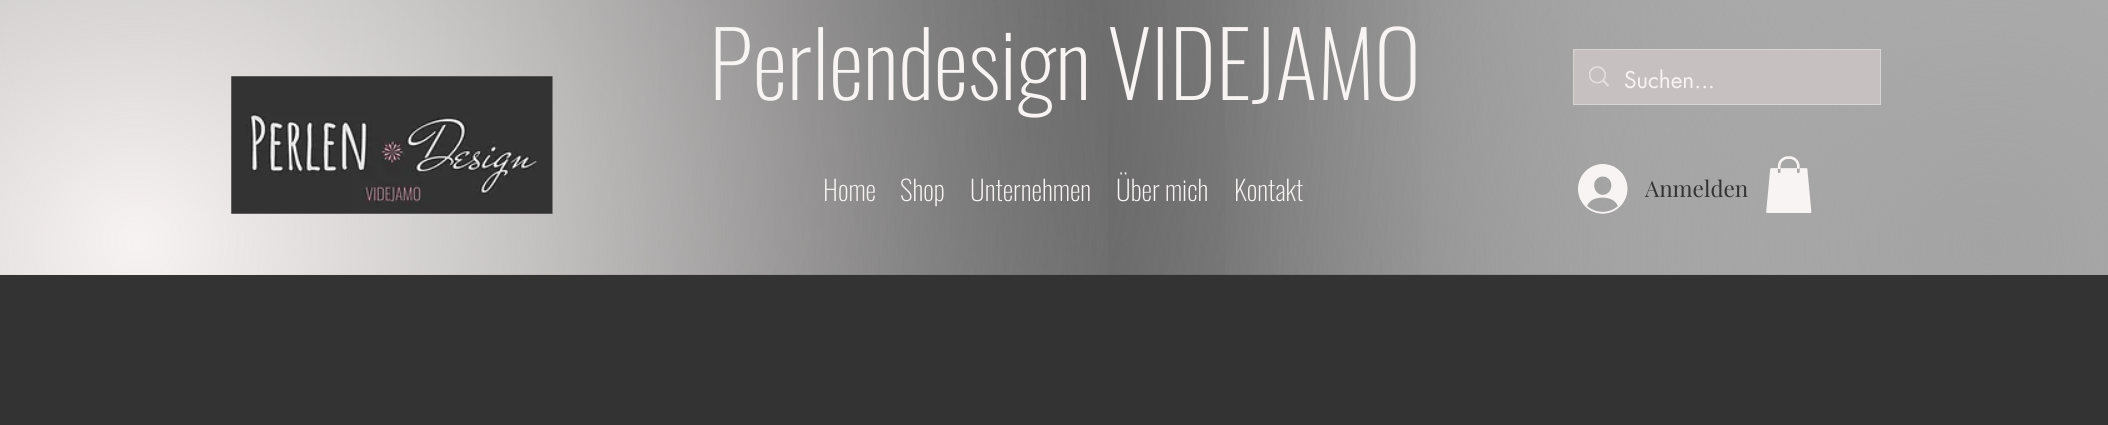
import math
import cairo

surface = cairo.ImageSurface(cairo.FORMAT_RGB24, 2108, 425)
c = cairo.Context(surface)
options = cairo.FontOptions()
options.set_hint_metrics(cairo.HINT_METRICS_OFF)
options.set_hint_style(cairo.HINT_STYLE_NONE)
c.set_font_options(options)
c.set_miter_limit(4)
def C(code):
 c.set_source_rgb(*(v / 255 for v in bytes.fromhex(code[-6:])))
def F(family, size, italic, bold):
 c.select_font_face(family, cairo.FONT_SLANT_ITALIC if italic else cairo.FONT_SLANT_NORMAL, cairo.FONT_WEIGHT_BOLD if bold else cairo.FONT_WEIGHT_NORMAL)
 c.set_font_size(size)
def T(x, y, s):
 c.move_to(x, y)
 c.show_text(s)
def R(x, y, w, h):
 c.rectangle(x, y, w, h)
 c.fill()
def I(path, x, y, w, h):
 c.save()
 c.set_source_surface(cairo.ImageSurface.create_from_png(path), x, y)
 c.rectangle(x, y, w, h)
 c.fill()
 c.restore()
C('333333')
c.paint()
gradient = cairo.RadialGradient(1031,136,0,1031,136,1086)
gradient.add_color_stop_rgba(0,0.2,0.2,0.2,1)
gradient.add_color_stop_rgba(1,1,1,1,1)
c.set_source(gradient)
R(0,0,2108,274)
gradient = cairo.RadialGradient(1976,31,0,1976,31,1990)
gradient.add_color_stop_rgba(0,0.725,0.725,0.725,1)
gradient.add_color_stop_rgba(.7,0.725,0.725,0.725,0)
c.set_source(gradient)
R(637,0,1471,274)
gradient = cairo.RadialGradient(130,35,0,130,35,1993)
gradient.add_color_stop_rgba(0,0.459,0.459,0.459,1)
gradient.add_color_stop_rgba(.7,0.459,0.459,0.459,0)
c.set_source(gradient)
R(0,0,1460,274)
gradient = cairo.RadialGradient(137,241,0,137,241,1986)
gradient.add_color_stop_rgba(0,0.976,0.957,0.957,.99)
gradient.add_color_stop_rgba(.5,0.976,0.957,0.957,0)
c.set_source(gradient)
R(0,0,1108,274)
gradient = cairo.RadialGradient(1990,245,0,1990,245,2005)
gradient.add_color_stop_rgba(0,0.639,0.639,0.639,1)
gradient.add_color_stop_rgba(.4,0.639,0.639,0.639,0)
c.set_source(gradient)
R(1244,0,864,274)
gradient = cairo.RadialGradient(1031,136,0,1031,136,1086)
gradient.add_color_stop_rgba(0,0.2,0.2,0.2,1)
gradient.add_color_stop_rgba(1,0.2,0.2,0.2,0)
c.set_source(gradient)
R(0,0,2100,274)
gradient = cairo.RadialGradient(1976,31,0,1976,31,1991)
gradient.add_color_stop_rgba(0,0.725,0.725,0.725,1)
gradient.add_color_stop_rgba(.7,0.725,0.725,0.725,0)
c.set_source(gradient)
R(618,0,1490,275)
gradient = cairo.RadialGradient(130,35,0,130,35,1993)
gradient.add_color_stop_rgba(0,0.459,0.459,0.459,1)
gradient.add_color_stop_rgba(.7,0.459,0.459,0.459,0)
c.set_source(gradient)
R(0,0,1421,275)
gradient = cairo.RadialGradient(137,242,0,137,242,1986)
gradient.add_color_stop_rgba(0,0.976,0.957,0.957,.99)
gradient.add_color_stop_rgba(.5,0.976,0.957,0.957,0)
c.set_source(gradient)
R(0,0,1108,275)
gradient = cairo.RadialGradient(1990,246,0,1990,246,2005)
gradient.add_color_stop_rgba(0,0.639,0.639,0.639,1)
gradient.add_color_stop_rgba(.4,0.639,0.639,0.639,0)
c.set_source(gradient)
R(1225,0,883,275)
I('1.png',231,76,322,138)
F('Oswald ExtraLight',90,0,0)
C('f9f4f4')
T(709,100,'Perlendesign VIDEJAMO')
c.rectangle(1573.5,49.5,307,55)
c.set_source_rgba(0.976,0.957,0.957,0.6)
c.set_line_width(1)
c.stroke()
C('c6c0c0')
R(1574,50,306,54)
I('2.png',1589,66,20,21)
F('futura',22.5,0,0)
C('f9f4f4')
T(1624,88,'Suchen...')
I('3.png',1578,164,50,50)
F('Playfair Display',22.5,0,0)
C('333333')
T(1645,197,'Anmelden')
I('4.png',1766,156,46,57)
F('Oswald ExtraLight',27.5,0,0)
C('f9f4f4')
T(823,201,'Home')
T(900,201,'Shop')
T(970,201,'Unternehmen')
T(1116,201,'Über mich')
T(1234,201,'Kontakt')
surface.write_to_png('o.png')
